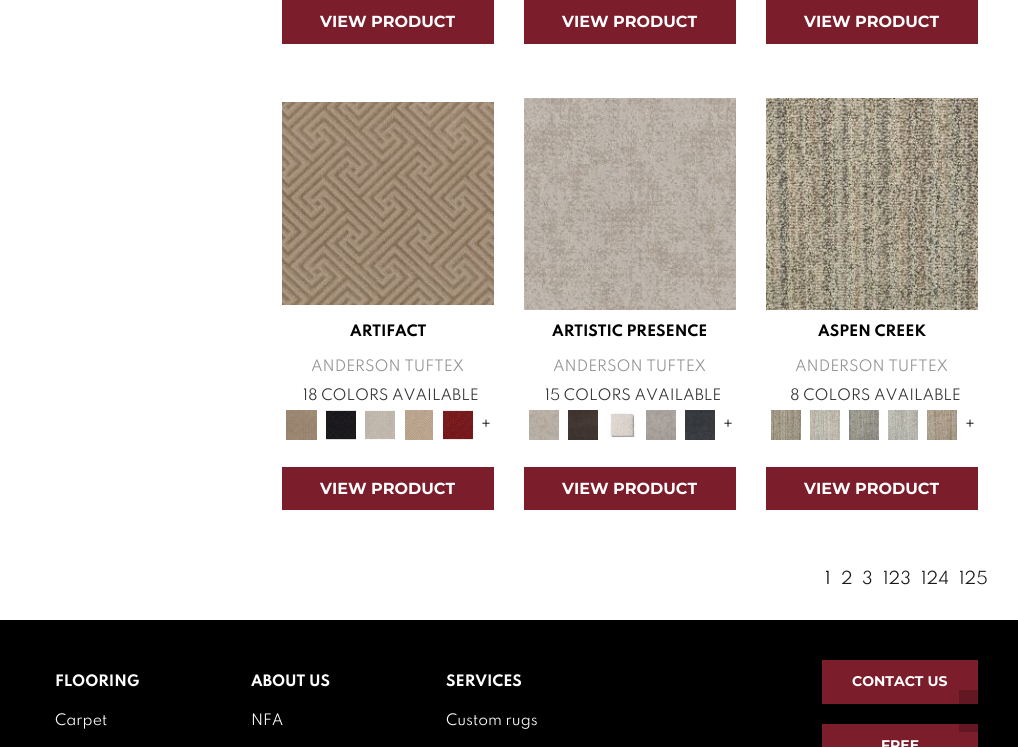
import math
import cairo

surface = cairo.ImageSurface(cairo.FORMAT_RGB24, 1018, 747)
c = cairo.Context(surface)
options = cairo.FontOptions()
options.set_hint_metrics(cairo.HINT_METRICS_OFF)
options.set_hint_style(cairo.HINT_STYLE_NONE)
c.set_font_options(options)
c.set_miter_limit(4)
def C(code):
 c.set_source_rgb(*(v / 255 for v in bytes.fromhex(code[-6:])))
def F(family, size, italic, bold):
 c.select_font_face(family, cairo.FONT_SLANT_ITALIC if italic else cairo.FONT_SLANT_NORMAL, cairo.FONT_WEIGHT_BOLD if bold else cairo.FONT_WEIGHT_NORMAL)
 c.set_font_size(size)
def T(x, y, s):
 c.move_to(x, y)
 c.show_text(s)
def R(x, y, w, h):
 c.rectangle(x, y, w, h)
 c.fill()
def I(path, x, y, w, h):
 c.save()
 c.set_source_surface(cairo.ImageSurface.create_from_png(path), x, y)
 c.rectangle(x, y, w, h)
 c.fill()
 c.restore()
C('ffffff')
c.paint()
C('7c1d2c')
R(282,0,212,44)
F('Montserrat',16,0,1)
C('ffffff')
T(320,27,'VIEW PRODUCT')
C('7c1d2c')
R(524,0,212,44)
C('ffffff')
T(562,27,'VIEW PRODUCT')
C('7c1d2c')
R(766,0,212,44)
C('ffffff')
T(804,27,'VIEW PRODUCT')
I('1.png',282,102,212,203)
F('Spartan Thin',14,0,1)
C('000000')
T(350,336,'ARTIFACT')
F('Spartan Thin',14,0,0)
C('929292')
T(311,371,'ANDERSON TUFTEX')
C('333333')
T(303,400,'18 COLORS AVAILABLE')
I('2.png',286,410,31,30)
I('3.png',326,410,30,30)
I('4.png',365,410,30,30)
I('5.png',405,410,28,30)
I('6.png',443,410,30,30)
C('000000')
T(481,429,'+')
C('7c1d2c')
R(282,467,212,43)
F('Montserrat',16,0,1)
C('ffffff')
T(320,494,'VIEW PRODUCT')
I('7.png',524,98,212,212)
F('Spartan Thin',14,0,1)
C('000000')
T(552,336,'ARTISTIC PRESENCE')
F('Spartan Thin',14,0,0)
C('929292')
T(553,371,'ANDERSON TUFTEX')
C('333333')
T(545,400,'15 COLORS AVAILABLE')
I('8.png',529,410,30,30)
I('9.png',568,410,30,30)
I('10.png',608,410,28,29)
I('11.png',646,410,30,30)
I('12.png',685,410,30,30)
C('000000')
T(723,429,'+')
C('7c1d2c')
R(524,467,212,43)
F('Montserrat',16,0,1)
C('ffffff')
T(562,494,'VIEW PRODUCT')
I('13.png',766,98,212,212)
F('Spartan Thin',14,0,1)
C('000000')
T(818,336,'ASPEN CREEK')
F('Spartan Thin',14,0,0)
C('929292')
T(795,371,'ANDERSON TUFTEX')
C('333333')
T(790,400,'8 COLORS AVAILABLE')
I('14.png',771,410,30,30)
I('15.png',810,410,30,30)
I('16.png',849,410,30,30)
I('17.png',888,410,30,30)
I('18.png',927,410,30,30)
C('000000')
T(965,429,'+')
C('7c1d2c')
R(766,467,212,43)
F('Montserrat',16,0,1)
C('ffffff')
T(804,494,'VIEW PRODUCT')
F('Spartan Thin',16,0,0)
C('000000')
T(825,584,'1')
C('1a1a1a')
T(841,584,'2')
T(862,584,'3')
T(883,584,'123')
T(921,584,'124')
T(959,584,'125')
C('000000')
R(0,620,1018,127)
F('Spartan Thin',14,0,1)
C('ffffff')
T(55,686,'FLOORING')
F('Spartan Thin',14,0,0)
T(55,725,'Carpet')
F('Spartan Thin',14,0,1)
T(251,686,'ABOUT US')
F('Spartan Thin',14,0,0)
T(251,725,'NFA')
F('Spartan Thin',14,0,1)
T(446,686,'SERVICES')
F('Spartan Thin',14,0,0)
T(446,725,'Custom rugs')
C('7c1d2c')
R(822,660,156,44)
C('631723')
R(959,690,19,14)
F('Montserrat',14,0,1)
C('ffffff')
T(852,686,'CONTACT US')
C('7c1d2c')
R(822,724,156,23)
C('631723')
R(959,724,19,8)
C('ffffff')
T(881,750,'FREE')
surface.write_to_png('o.png')
